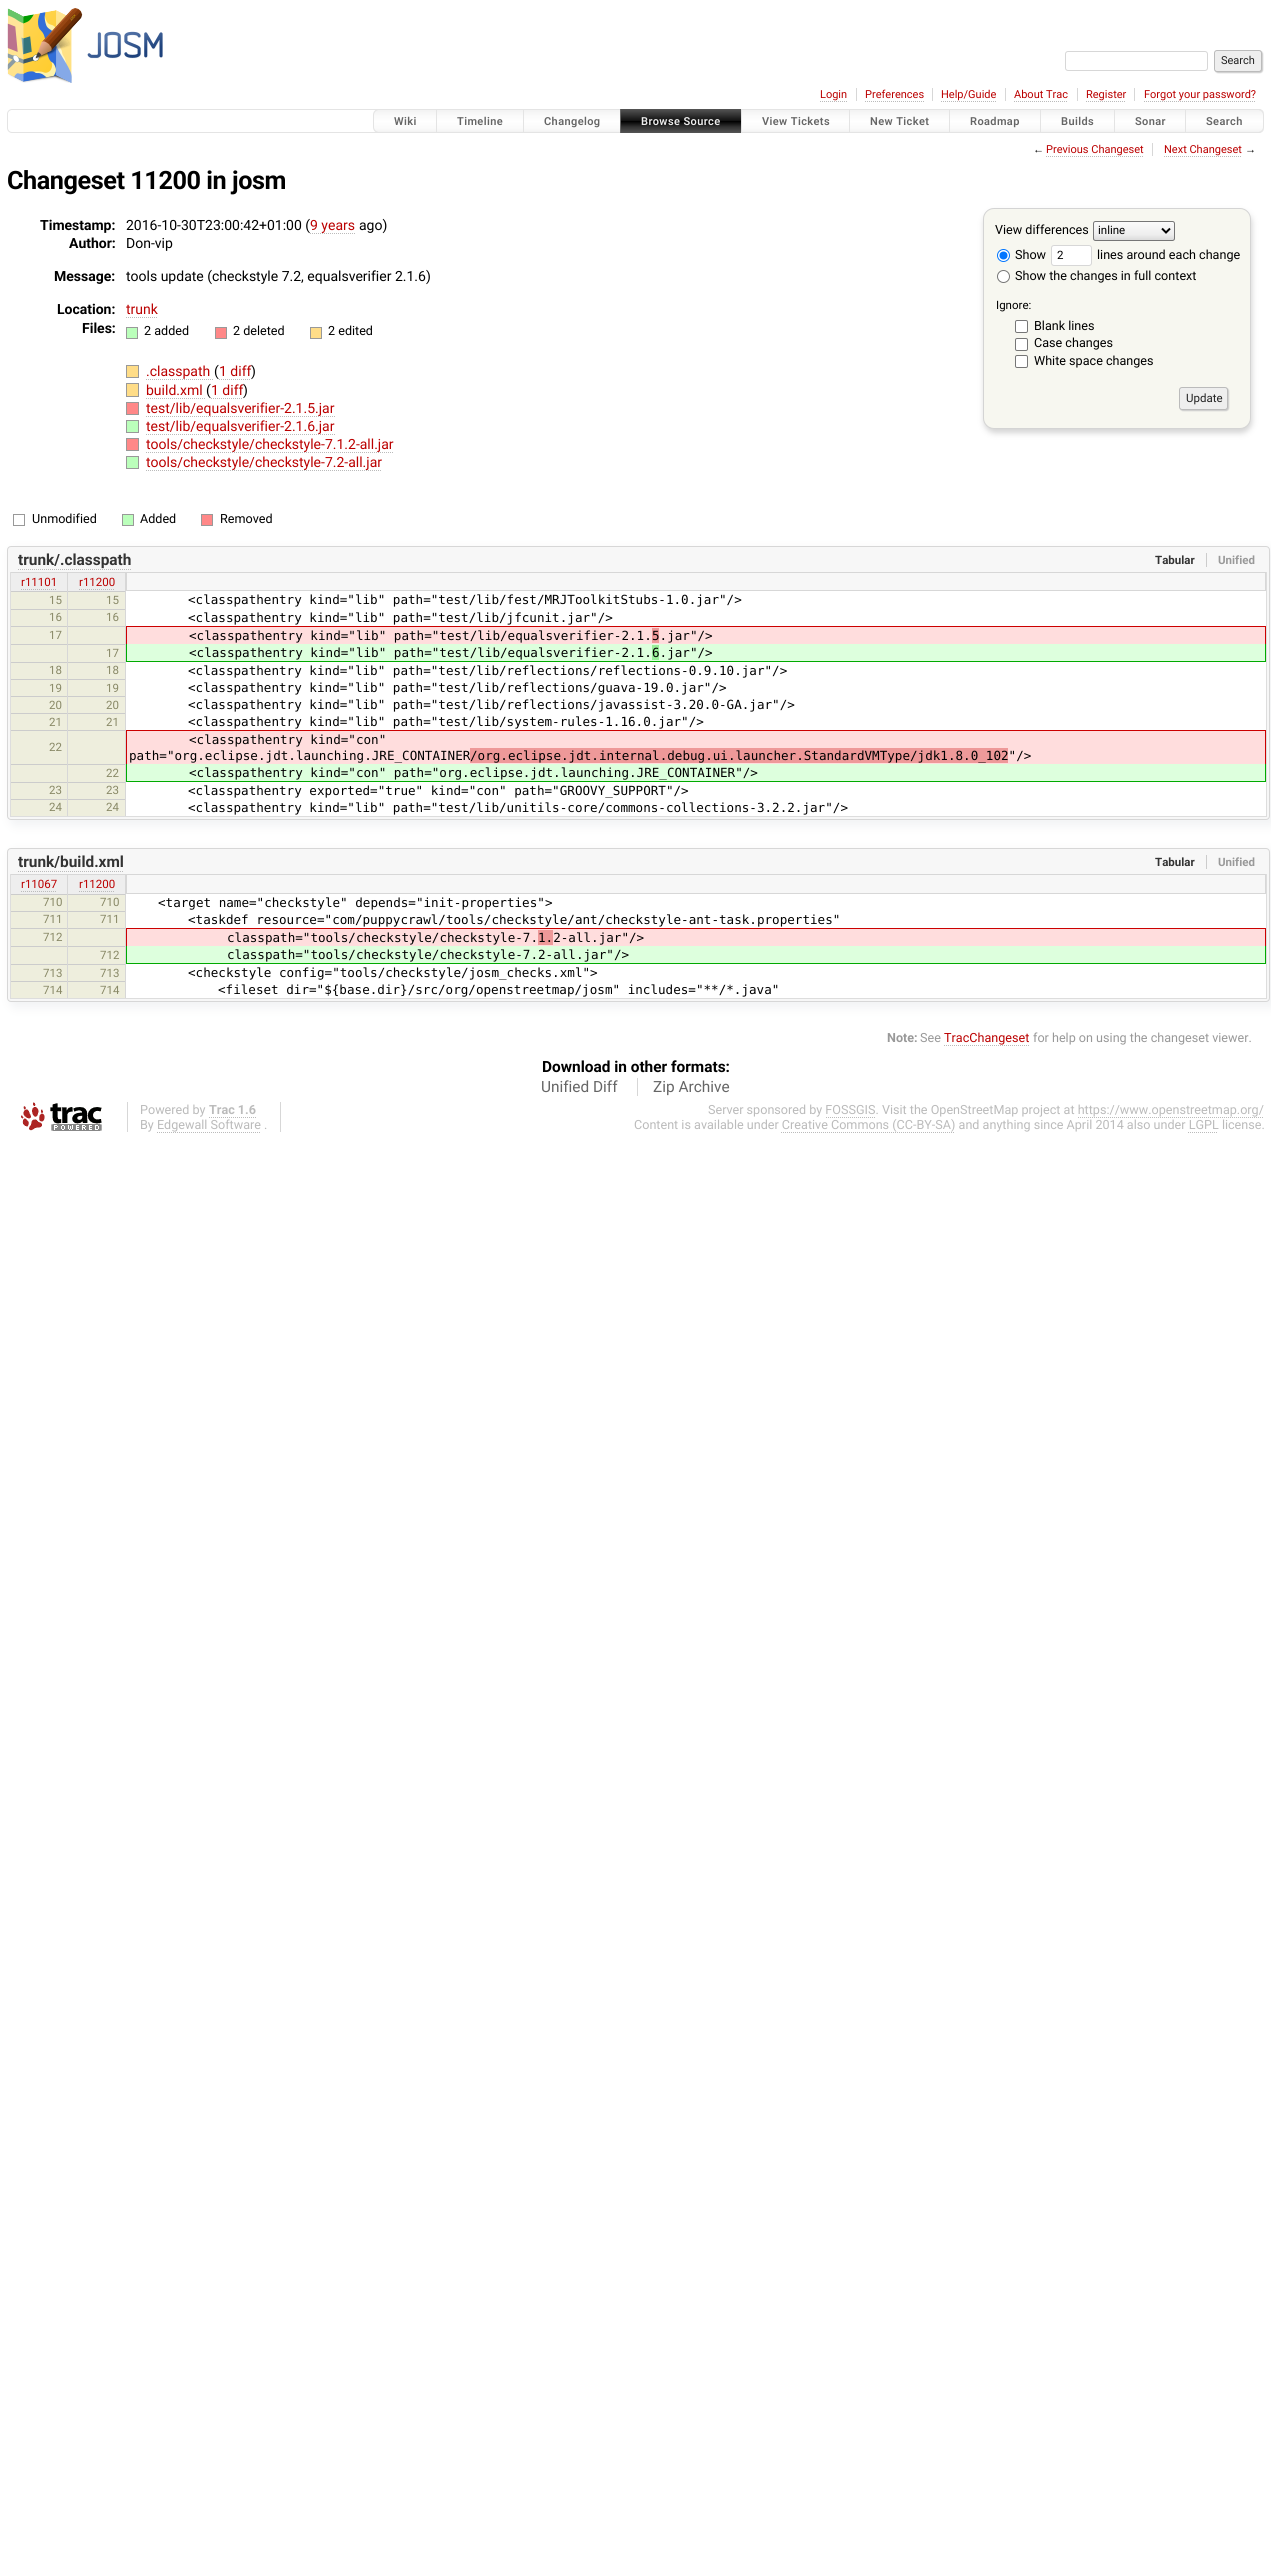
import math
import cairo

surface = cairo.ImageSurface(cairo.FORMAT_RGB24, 1271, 2574)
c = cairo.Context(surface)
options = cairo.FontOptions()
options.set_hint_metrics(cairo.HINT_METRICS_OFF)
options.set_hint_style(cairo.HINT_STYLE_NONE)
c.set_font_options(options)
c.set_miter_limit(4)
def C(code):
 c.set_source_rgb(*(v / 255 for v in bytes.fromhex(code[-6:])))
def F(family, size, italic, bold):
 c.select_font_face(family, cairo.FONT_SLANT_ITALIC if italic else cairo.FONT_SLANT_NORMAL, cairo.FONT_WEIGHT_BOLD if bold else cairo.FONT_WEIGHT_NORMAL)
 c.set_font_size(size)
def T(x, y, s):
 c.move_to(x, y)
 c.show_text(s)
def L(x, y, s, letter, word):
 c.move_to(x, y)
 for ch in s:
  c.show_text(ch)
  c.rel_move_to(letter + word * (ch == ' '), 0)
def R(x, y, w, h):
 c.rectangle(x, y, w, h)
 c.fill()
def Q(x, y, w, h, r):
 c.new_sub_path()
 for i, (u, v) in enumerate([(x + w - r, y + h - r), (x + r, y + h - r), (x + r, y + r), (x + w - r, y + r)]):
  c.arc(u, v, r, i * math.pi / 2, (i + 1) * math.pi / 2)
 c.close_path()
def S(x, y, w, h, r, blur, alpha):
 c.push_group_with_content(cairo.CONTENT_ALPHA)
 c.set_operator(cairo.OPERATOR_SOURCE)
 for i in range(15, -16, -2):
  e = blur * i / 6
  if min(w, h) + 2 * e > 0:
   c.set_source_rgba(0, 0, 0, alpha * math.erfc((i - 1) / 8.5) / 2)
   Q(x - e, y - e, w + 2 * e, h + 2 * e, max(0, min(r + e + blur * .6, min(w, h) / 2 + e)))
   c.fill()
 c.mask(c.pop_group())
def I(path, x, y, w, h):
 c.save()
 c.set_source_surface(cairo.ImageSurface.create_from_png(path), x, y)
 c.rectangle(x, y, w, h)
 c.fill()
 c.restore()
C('ffffff')
c.paint()
I('1.png',7,8,156,75)
Q(1065.5,51.5,142,19,2.5)
C('d7d7d7')
c.set_line_width(1)
c.stroke()
C('cccccc')
S(1215,51,48,22,3,.5,1)
C('eeeeee')
Q(1214.5,50.5,47,21,2.5)
c.fill_preserve()
C('bbbbbb')
c.stroke()
F('Roboto',11,0,0)
C('222222')
T(1221,64,'Search')
C('d7d7d7')
R(856,88,1,13)
C('bb0000')
T(820,98,'Login')
c.new_path()
c.move_to(820,101.5)
c.line_to(847,101.5)
C('bbbbbb')
c.set_dash([1,1])
c.stroke()
C('d7d7d7')
R(932,88,1,13)
C('bb0000')
T(865,98,'Preferences')
c.new_path()
c.move_to(865,101.5)
c.line_to(924,101.5)
C('bbbbbb')
c.stroke()
C('d7d7d7')
R(1005,88,1,13)
C('bb0000')
T(941,98,'Help/Guide')
c.new_path()
c.move_to(941,101.5)
c.line_to(997,101.5)
C('bbbbbb')
c.stroke()
C('d7d7d7')
R(1077,88,1,13)
C('bb0000')
T(1014,98,'About Trac')
c.new_path()
c.move_to(1014,101.5)
c.line_to(1068,101.5)
C('bbbbbb')
c.stroke()
C('d7d7d7')
R(1134,88,1,13)
C('bb0000')
T(1086,98,'Register')
c.new_path()
c.move_to(1086,101.5)
c.line_to(1126,101.5)
C('bbbbbb')
c.stroke()
C('bb0000')
T(1144,98,'Forgot your password?')
c.new_path()
c.move_to(1144,101.5)
c.line_to(1256,101.5)
C('bbbbbb')
c.stroke()
Q(7.5,109.5,1256,23,4.5)
C('e4e4e4')
c.set_dash([])
c.stroke()
c.save()
c.new_path()
c.move_to(379,109)
c.line_to(437,109)
c.line_to(437,133)
c.line_to(379,133)
c.curve_to(375.5,133,373,130.5,373,127)
c.line_to(373,115)
c.curve_to(373,111.5,375.5,109,379,109)
c.close_path()
c.clip()
gradient = cairo.LinearGradient(405,110,405,132)
gradient.add_color_stop_rgba(0,0.949,0.949,0.949,1)
gradient.add_color_stop_rgba(.25,0.98,0.98,0.98,1)
gradient.add_color_stop_rgba(.49,0.996,0.996,0.996,1)
gradient.add_color_stop_rgba(.51,1,1,1,1)
gradient.add_color_stop_rgba(.85,0.98,0.98,0.98,1)
gradient.add_color_stop_rgba(1,0.949,0.949,0.949,1)
c.set_source(gradient)
R(373,110,63,22)
c.restore()
c.new_path()
c.move_to(379,109.5)
c.line_to(436.5,109.5)
c.line_to(436.5,132.5)
c.line_to(379,132.5)
c.curve_to(376,132.5,373.5,130,373.5,127)
c.line_to(373.5,115)
c.curve_to(373.5,112,376,109.5,379,109.5)
c.close_path()
c.stroke()
F('Roboto SemiBold',11,0,0)
C('666666')
L(394,125,'Wiki',.4,0)
gradient = cairo.LinearGradient(480,110,480,132)
gradient.add_color_stop_rgba(0,0.949,0.949,0.949,1)
gradient.add_color_stop_rgba(.25,0.98,0.98,0.98,1)
gradient.add_color_stop_rgba(.49,0.996,0.996,0.996,1)
gradient.add_color_stop_rgba(.51,1,1,1,1)
gradient.add_color_stop_rgba(.85,0.98,0.98,0.98,1)
gradient.add_color_stop_rgba(1,0.949,0.949,0.949,1)
c.set_source(gradient)
R(437,110,86,22)
c.rectangle(436.5,109.5,87,23)
C('e4e4e4')
c.stroke()
C('666666')
L(457,125,'Timeline',.4,0)
gradient = cairo.LinearGradient(573,110,573,132)
gradient.add_color_stop_rgba(0,0.949,0.949,0.949,1)
gradient.add_color_stop_rgba(.25,0.98,0.98,0.98,1)
gradient.add_color_stop_rgba(.49,0.996,0.996,0.996,1)
gradient.add_color_stop_rgba(.51,1,1,1,1)
gradient.add_color_stop_rgba(.85,0.98,0.98,0.98,1)
gradient.add_color_stop_rgba(1,0.949,0.949,0.949,1)
c.set_source(gradient)
R(524,110,96,22)
c.rectangle(523.5,109.5,98,23)
C('e4e4e4')
c.stroke()
C('666666')
L(544,125,'Changelog',.4,0)
c.rectangle(620.5,109.5,121,23)
c.stroke()
gradient = cairo.LinearGradient(681,109,681,133)
gradient.add_color_stop_rgba(0,0.333,0.333,0.333,1)
gradient.add_color_stop_rgba(.25,0.2,0.2,0.2,1)
gradient.add_color_stop_rgba(.49,0.067,0.067,0.067,1)
gradient.add_color_stop_rgba(.51,0,0,0,1)
gradient.add_color_stop_rgba(.75,0.2,0.2,0.2,1)
gradient.add_color_stop_rgba(1,0.333,0.333,0.333,1)
c.set_source(gradient)
R(621,109,120,24)
C('eeeeee')
L(641,125,'Browse Source',.4,0)
gradient = cairo.LinearGradient(796,110,796,132)
gradient.add_color_stop_rgba(0,0.949,0.949,0.949,1)
gradient.add_color_stop_rgba(.25,0.98,0.98,0.98,1)
gradient.add_color_stop_rgba(.49,0.996,0.996,0.996,1)
gradient.add_color_stop_rgba(.51,1,1,1,1)
gradient.add_color_stop_rgba(.85,0.98,0.98,0.98,1)
gradient.add_color_stop_rgba(1,0.949,0.949,0.949,1)
c.set_source(gradient)
R(742,110,107,22)
c.rectangle(741.5,109.5,108,23)
C('e4e4e4')
c.stroke()
C('666666')
L(762,125,'View Tickets',.4,0)
gradient = cairo.LinearGradient(900,110,900,132)
gradient.add_color_stop_rgba(0,0.949,0.949,0.949,1)
gradient.add_color_stop_rgba(.25,0.98,0.98,0.98,1)
gradient.add_color_stop_rgba(.49,0.996,0.996,0.996,1)
gradient.add_color_stop_rgba(.51,1,1,1,1)
gradient.add_color_stop_rgba(.85,0.98,0.98,0.98,1)
gradient.add_color_stop_rgba(1,0.949,0.949,0.949,1)
c.set_source(gradient)
R(850,110,99,22)
c.rectangle(849.5,109.5,100,23)
C('e4e4e4')
c.stroke()
C('666666')
L(870,125,'New Ticket',.4,0)
gradient = cairo.LinearGradient(995,110,995,132)
gradient.add_color_stop_rgba(0,0.949,0.949,0.949,1)
gradient.add_color_stop_rgba(.25,0.98,0.98,0.98,1)
gradient.add_color_stop_rgba(.49,0.996,0.996,0.996,1)
gradient.add_color_stop_rgba(.51,1,1,1,1)
gradient.add_color_stop_rgba(.85,0.98,0.98,0.98,1)
gradient.add_color_stop_rgba(1,0.949,0.949,0.949,1)
c.set_source(gradient)
R(950,110,90,22)
c.rectangle(949.5,109.5,91,23)
C('e4e4e4')
c.stroke()
C('666666')
L(970,125,'Roadmap',.4,0)
gradient = cairo.LinearGradient(1078,110,1078,132)
gradient.add_color_stop_rgba(0,0.949,0.949,0.949,1)
gradient.add_color_stop_rgba(.25,0.98,0.98,0.98,1)
gradient.add_color_stop_rgba(.49,0.996,0.996,0.996,1)
gradient.add_color_stop_rgba(.51,1,1,1,1)
gradient.add_color_stop_rgba(.85,0.98,0.98,0.98,1)
gradient.add_color_stop_rgba(1,0.949,0.949,0.949,1)
c.set_source(gradient)
R(1041,110,73,22)
c.rectangle(1040.5,109.5,74,23)
C('e4e4e4')
c.stroke()
C('666666')
L(1061,125,'Builds',.4,0)
gradient = cairo.LinearGradient(1150,110,1150,132)
gradient.add_color_stop_rgba(0,0.949,0.949,0.949,1)
gradient.add_color_stop_rgba(.25,0.98,0.98,0.98,1)
gradient.add_color_stop_rgba(.49,0.996,0.996,0.996,1)
gradient.add_color_stop_rgba(.51,1,1,1,1)
gradient.add_color_stop_rgba(.85,0.98,0.98,0.98,1)
gradient.add_color_stop_rgba(1,0.949,0.949,0.949,1)
c.set_source(gradient)
R(1115,110,70,22)
c.rectangle(1114.5,109.5,71,23)
C('e4e4e4')
c.stroke()
C('666666')
L(1135,125,'Sonar',.4,0)
c.save()
c.new_path()
c.move_to(1185,109)
c.line_to(1258,109)
c.curve_to(1261.5,109,1264,111.5,1264,115)
c.line_to(1264,127)
c.curve_to(1264,130.5,1261.5,133,1258,133)
c.line_to(1185,133)
c.close_path()
c.clip()
gradient = cairo.LinearGradient(1225,110,1225,132)
gradient.add_color_stop_rgba(0,0.949,0.949,0.949,1)
gradient.add_color_stop_rgba(.25,0.98,0.98,0.98,1)
gradient.add_color_stop_rgba(.49,0.996,0.996,0.996,1)
gradient.add_color_stop_rgba(.51,1,1,1,1)
gradient.add_color_stop_rgba(.85,0.98,0.98,0.98,1)
gradient.add_color_stop_rgba(1,0.949,0.949,0.949,1)
c.set_source(gradient)
R(1186,110,78,22)
c.restore()
c.new_path()
c.move_to(1185.5,109.5)
c.line_to(1258,109.5)
c.curve_to(1261,109.5,1263.5,112,1263.5,115)
c.line_to(1263.5,127)
c.curve_to(1263.5,130,1261,132.5,1258,132.5)
c.line_to(1185.5,132.5)
c.close_path()
C('e4e4e4')
c.stroke()
C('666666')
L(1206,125,'Search',.4,0)
C('d7d7d7')
R(1152,143,1,13)
F('Liberation Sans',11,0,0)
C('000000')
T(1033,153,'←')
F('Roboto',11,0,0)
C('bb0000')
T(1046,153,'Previous Changeset')
c.new_path()
c.move_to(1046,156.5)
c.line_to(1144,156.5)
C('bbbbbb')
c.set_dash([1,1])
c.stroke()
C('bb0000')
T(1164,153,'Next Changeset')
c.new_path()
c.move_to(1164,156.5)
c.line_to(1242,156.5)
C('bbbbbb')
c.stroke()
F('Liberation Sans',11,0,0)
C('000000')
T(1245,153,'→')
F('Roboto',25.25,0,1)
L(7,189,'Changeset 11200 in josm',-.45,0)
F('Roboto',14,0,1)
T(40,230,'Timestamp:')
F('Roboto',14,0,0)
T(126,230,'2016-10-30T23:00:42+01:00 (')
C('bb0000')
T(310,230,'9 years')
c.new_path()
c.move_to(310,233.5)
c.line_to(355,233.5)
C('bbbbbb')
c.stroke()
C('000000')
T(359,230,'ago)')
F('Roboto',14,0,1)
T(69,248,'Author:')
F('Roboto',14,0,0)
T(126,248,'Don-vip')
F('Roboto',14,0,1)
T(54,281,'Message:')
F('Roboto',14,0,0)
T(126,281,'tools update (checkstyle 7.2, equalsverifier 2.1.6)')
F('Roboto',14,0,1)
T(57,314,'Location:')
F('Roboto',14,0,0)
C('bb0000')
T(126,314,'trunk')
c.new_path()
c.move_to(126,317.5)
c.line_to(158,317.5)
C('bbbbbb')
c.stroke()
F('Roboto',14,0,1)
C('000000')
T(82,333,'Files:')
C('bbffbb')
c.rectangle(126.5,327.5,11,11)
c.fill_preserve()
C('999999')
c.set_dash([])
c.stroke()
F('Roboto',12.6,0,0)
C('000000')
T(144,335,'2 added')
C('ff8888')
c.rectangle(215.5,327.5,11,11)
c.fill_preserve()
C('999999')
c.stroke()
C('000000')
T(233,335,'2 deleted')
C('ffdd88')
c.rectangle(310.5,327.5,11,11)
c.fill_preserve()
C('999999')
c.stroke()
C('000000')
T(328,335,'2 edited')
C('ffdd88')
c.rectangle(126.5,365.5,12,12)
c.fill_preserve()
C('999999')
c.stroke()
F('Roboto',14,0,0)
C('bb0000')
T(146,376,'.classpath')
c.new_path()
c.move_to(146,379.5)
c.line_to(214,379.5)
C('bbbbbb')
c.set_dash([1,1])
c.stroke()
C('000000')
T(214,376,'(')
C('bb0000')
T(219,376,'1 diff')
c.new_path()
c.move_to(219,379.5)
c.line_to(251,379.5)
C('bbbbbb')
c.stroke()
C('000000')
T(251,376,')')
C('ffdd88')
c.rectangle(126.5,383.5,12,13)
c.fill_preserve()
C('999999')
c.set_dash([])
c.stroke()
C('bb0000')
T(146,395,'build.xml')
c.new_path()
c.move_to(146,398.5)
c.line_to(206,398.5)
C('bbbbbb')
c.set_dash([1,1])
c.stroke()
C('000000')
T(206,395,'(')
C('bb0000')
T(211,395,'1 diff')
c.new_path()
c.move_to(211,398.5)
c.line_to(243,398.5)
C('bbbbbb')
c.stroke()
C('000000')
T(243,395,')')
C('ff8888')
c.rectangle(126.5,402.5,12,12)
c.fill_preserve()
C('999999')
c.set_dash([])
c.stroke()
C('bb0000')
T(146,413,'test/lib/equalsverifier-2.1.5.jar')
c.new_path()
c.move_to(146,416.5)
c.line_to(335,416.5)
C('bbbbbb')
c.set_dash([1,1])
c.stroke()
C('bbffbb')
c.rectangle(126.5,420.5,12,12)
c.fill_preserve()
C('999999')
c.set_dash([])
c.stroke()
C('bb0000')
T(146,431,'test/lib/equalsverifier-2.1.6.jar')
c.new_path()
c.move_to(146,434.5)
c.line_to(335,434.5)
C('bbbbbb')
c.set_dash([1,1])
c.stroke()
C('ff8888')
c.rectangle(126.5,438.5,12,12)
c.fill_preserve()
C('999999')
c.set_dash([])
c.stroke()
C('bb0000')
T(146,449,'tools/checkstyle/checkstyle-7.1.2-all.jar')
c.new_path()
c.move_to(146,452.5)
c.line_to(394,452.5)
C('bbbbbb')
c.set_dash([1,1])
c.stroke()
C('bbffbb')
c.rectangle(126.5,456.5,12,12)
c.fill_preserve()
C('999999')
c.set_dash([])
c.stroke()
C('bb0000')
T(146,467,'tools/checkstyle/checkstyle-7.2-all.jar')
c.new_path()
c.move_to(146,470.5)
c.line_to(382,470.5)
C('bbbbbb')
c.set_dash([1,1])
c.stroke()
C('d4d4d4')
S(984,212,268,221,11,3,1)
C('f7f7f0')
Q(983.5,208.5,267,220,10.5)
c.fill_preserve()
C('d4d4d4')
c.set_dash([])
c.stroke()
F('Roboto',12.6,0,0)
C('000000')
T(995,234,'View differences')
c.save()
Q(1093,221,82,20,2.5)
c.clip()
gradient = cairo.LinearGradient(1134,240,1134,222)
gradient.add_color_stop_rgba(0,0.859,0.859,0.859,1)
gradient.add_color_stop_rgba(.3,0.933,0.933,0.933,1)
gradient.add_color_stop_rgba(1,0.984,0.984,0.984,1)
c.set_source(gradient)
R(1093,222,82,18)
c.restore()
Q(1093.5,221.5,81,19,2)
C('767676')
c.stroke()
c.new_path()
c.move_to(1162,228.5)
c.line_to(1166,232.5)
c.line_to(1170,228.5)
C('000000')
c.set_line_width(2)
c.stroke()
F('Roboto',11.5,0,0)
T(1098,234,'inline')
C('ffffff')
c.new_path()
c.arc(1003.5,255.5,6,0,2 * math.pi)
c.fill_preserve()
C('0075ff')
c.set_line_width(1)
c.stroke()
c.arc(1003.5,255.5,4,0,2 * math.pi)
c.fill()
F('Roboto',12.6,0,0)
C('000000')
T(1015,259,'Show')
C('ffffff')
Q(1051.5,245.5,40,20,2.5)
c.fill_preserve()
C('d7d7d7')
c.stroke()
F('Roboto',11.5,0,0)
C('000000')
T(1057,259,'2')
F('Roboto',12.6,0,0)
T(1097,259,'lines around each change')
C('ffffff')
c.new_path()
c.arc(1003.5,276.5,6,0,2 * math.pi)
c.fill_preserve()
C('767676')
c.stroke()
C('000000')
T(1015,280,'Show the changes in full context')
F('Roboto',11.5,0,0)
T(996,309,'Ignore:')
C('ffffff')
Q(1015.5,320.5,12,12,1.5)
c.fill_preserve()
C('767676')
c.stroke()
F('Roboto',12.6,0,0)
C('000000')
T(1034,330,'Blank lines')
C('ffffff')
Q(1015.5,338.5,12,12,1.5)
c.fill_preserve()
C('767676')
c.stroke()
C('000000')
T(1034,347,'Case changes')
C('ffffff')
Q(1015.5,355.5,12,12,1.5)
c.fill_preserve()
C('767676')
c.stroke()
C('000000')
T(1034,365,'White space changes')
C('cccccc')
S(1180,388,49,23,3,.5,1)
C('eeeeee')
Q(1179.5,387.5,48,22,2.5)
c.fill_preserve()
C('bbbbbb')
c.stroke()
F('Roboto',11.5,0,0)
C('222222')
T(1186,402,'Update')
c.rectangle(13.5,514.5,11,11)
C('999999')
c.stroke()
F('Roboto',12.6,0,0)
C('000000')
T(32,523,'Unmodified')
C('bbffbb')
c.rectangle(122.5,514.5,11,11)
c.fill_preserve()
C('999999')
c.stroke()
C('000000')
T(140,523,'Added')
C('ff8888')
c.rectangle(201.5,514.5,11,11)
c.fill_preserve()
C('999999')
c.stroke()
C('000000')
T(220,523,'Removed')
C('d2d7dc')
S(10,549,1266,277,6,5,.3)
C('f7f7f7')
Q(7.5,546.5,1262,273,3.5)
c.fill_preserve()
C('d7d7d7')
c.stroke()
F('Roboto',15.4,0,1)
C('333333')
T(18,565,'trunk/.classpath')
c.new_path()
c.move_to(18,569.5)
c.line_to(131,569.5)
C('bbbbbb')
c.set_dash([1,1])
c.stroke()
F('Roboto',11.5,0,1)
C('333333')
T(1155,564,'Tabular')
C('999999')
T(1218,564,'Unified')
C('cccccc')
R(1206,553,1,14)
C('dddddd')
R(1266,572,1,245)
R(10,816,1257,1)
R(10,572,1,245)
C('eeeeee')
R(11,573,56,18)
C('d7d7d7')
R(11,572,115,1)
R(67,572,1,19)
F('Roboto',11.5,0,0)
C('bb0000')
T(21,586,'r11101')
c.new_path()
c.move_to(21,589.5)
c.line_to(57,589.5)
C('bbbbbb')
c.stroke()
C('eeeeee')
R(68,573,57,18)
C('d7d7d7')
R(125,572,1,19)
C('bb0000')
T(79,586,'r11200')
c.new_path()
c.move_to(79,589.5)
c.line_to(114,589.5)
C('bbbbbb')
c.stroke()
c.rectangle(126.5,572.5,1139,18)
C('d7d7d7')
c.set_dash([])
c.stroke()
C('eeeedd')
R(11,592,56,17)
C('cccccc')
R(11,591,115,1)
C('d7d7d7')
R(67,591,1,18)
C('888866')
T(49,604,'15')
C('eeeedd')
R(68,592,57,17)
C('d7d7d7')
R(125,591,1,18)
C('888866')
T(106,604,'15')
C('ffffff')
R(126,591,1140,35)
F('DejaVu Sans Mono',12.6,0,0)
C('000000')
T(188,604,'<classpathentry kind="lib" path="test/lib/fest/MRJToolkitStubs-1.0.jar"/>')
C('eeeedd')
R(11,610,56,16)
C('cccccc')
R(11,609,115,1)
C('d7d7d7')
R(67,609,1,17)
F('Roboto',11.5,0,0)
C('888866')
T(49,621,'16')
C('eeeedd')
R(68,610,57,16)
C('d7d7d7')
R(125,609,1,17)
C('888866')
T(106,621,'16')
F('DejaVu Sans Mono',12.6,0,0)
C('000000')
T(188,622,'<classpathentry kind="lib" path="test/lib/jfcunit.jar"/>')
C('eeeedd')
R(11,627,56,17)
C('cccccc')
R(11,626,115,1)
C('d7d7d7')
R(67,626,1,18)
F('Roboto',11.5,0,0)
C('888866')
T(49,639,'17')
C('eeeedd')
R(68,627,57,17)
C('d7d7d7')
R(125,626,1,18)
C('ffdddd')
R(127,627,1138,17)
C('cc0000')
R(126,626,1140,1)
R(1265,626,1,18)
R(126,626,1,18)
F('DejaVu Sans Mono',12.6,0,0)
C('000000')
T(189,640,'<classpathentry kind="lib" path="test/lib/equalsverifier-2.1.')
C('ee9999')
R(652,628,7,15)
C('000000')
T(652,640,'5.jar"/>')
C('eeeedd')
R(11,645,56,17)
C('cccccc')
R(11,644,115,1)
C('d7d7d7')
R(67,644,1,18)
C('ddffdd')
R(127,644,1138,17)
C('00aa00')
R(1265,644,1,18)
R(126,661,1140,1)
R(126,644,1,18)
C('000000')
T(189,657,'<classpathentry kind="lib" path="test/lib/equalsverifier-2.1.')
C('99ee99')
R(652,645,7,15)
C('000000')
T(652,657,'6.jar"/>')
C('eeeedd')
R(68,645,57,17)
C('d7d7d7')
R(125,644,1,18)
F('Roboto',11.5,0,0)
C('888866')
T(106,657,'17')
C('eeeedd')
R(11,663,56,16)
C('cccccc')
R(11,662,115,1)
C('d7d7d7')
R(67,662,1,17)
C('888866')
T(49,674,'18')
C('eeeedd')
R(68,663,57,16)
C('d7d7d7')
R(125,662,1,17)
C('888866')
T(106,674,'18')
C('ffffff')
R(126,662,1140,68)
F('DejaVu Sans Mono',12.6,0,0)
C('000000')
T(188,675,'<classpathentry kind="lib" path="test/lib/reflections/reflections-0.9.10.jar"/>')
C('eeeedd')
R(11,680,56,16)
C('cccccc')
R(11,679,115,1)
C('d7d7d7')
R(67,679,1,17)
F('Roboto',11.5,0,0)
C('888866')
T(49,692,'19')
C('eeeedd')
R(68,680,57,16)
C('d7d7d7')
R(125,679,1,17)
C('888866')
T(106,692,'19')
F('DejaVu Sans Mono',12.6,0,0)
C('000000')
T(188,692,'<classpathentry kind="lib" path="test/lib/reflections/guava-19.0.jar"/>')
C('eeeedd')
R(11,697,56,16)
C('cccccc')
R(11,696,115,1)
C('d7d7d7')
R(67,696,1,17)
F('Roboto',11.5,0,0)
C('888866')
T(49,709,'20')
C('eeeedd')
R(68,697,57,16)
C('d7d7d7')
R(125,696,1,17)
C('888866')
T(106,709,'20')
F('DejaVu Sans Mono',12.6,0,0)
C('000000')
T(188,709,'<classpathentry kind="lib" path="test/lib/reflections/javassist-3.20.0-GA.jar"/>')
C('eeeedd')
R(11,714,56,16)
C('cccccc')
R(11,713,115,1)
C('d7d7d7')
R(67,713,1,17)
F('Roboto',11.5,0,0)
C('888866')
T(49,726,'21')
C('eeeedd')
R(68,714,57,16)
C('d7d7d7')
R(125,713,1,17)
C('888866')
T(106,726,'21')
F('DejaVu Sans Mono',12.6,0,0)
C('000000')
T(188,726,'<classpathentry kind="lib" path="test/lib/system-rules-1.16.0.jar"/>')
C('eeeedd')
R(11,731,56,33)
C('cccccc')
R(11,730,115,1)
C('d7d7d7')
R(67,730,1,34)
F('Roboto',11.5,0,0)
C('888866')
T(49,751,'22')
C('eeeedd')
R(68,731,57,33)
C('d7d7d7')
R(125,730,1,34)
C('ffdddd')
R(127,731,1138,33)
C('cc0000')
R(126,730,1140,1)
R(1265,730,1,34)
R(126,730,1,34)
F('DejaVu Sans Mono',12.6,0,0)
C('000000')
T(189,744,'<classpathentry kind="con"')
T(129,760,'path="org.eclipse.jdt.launching.JRE_CONTAINER')
C('ee9999')
R(470,748,538,15)
C('000000')
T(470,760,'/org.eclipse.jdt.internal.debug.ui.launcher.StandardVMType/jdk1.8.0_102"/>')
C('eeeedd')
R(11,765,56,17)
C('cccccc')
R(11,764,115,1)
C('d7d7d7')
R(67,764,1,18)
C('ddffdd')
R(127,764,1138,17)
C('00aa00')
R(1265,764,1,18)
R(126,781,1140,1)
R(126,764,1,18)
C('000000')
T(189,777,'<classpathentry kind="con" path="org.eclipse.jdt.launching.JRE_CONTAINER"/>')
C('eeeedd')
R(68,765,57,17)
C('d7d7d7')
R(125,764,1,18)
F('Roboto',11.5,0,0)
C('888866')
T(106,777,'22')
C('eeeedd')
R(11,783,56,16)
C('cccccc')
R(11,782,115,1)
C('d7d7d7')
R(67,782,1,17)
C('888866')
T(49,794,'23')
C('eeeedd')
R(68,783,57,16)
C('d7d7d7')
R(125,782,1,17)
C('888866')
T(106,794,'23')
C('ffffff')
R(126,782,1140,34)
F('DejaVu Sans Mono',12.6,0,0)
C('000000')
T(188,795,'<classpathentry exported="true" kind="con" path="GROOVY_SUPPORT"/>')
C('eeeedd')
R(11,800,56,16)
C('cccccc')
R(11,799,115,1)
C('d7d7d7')
R(67,799,1,17)
F('Roboto',11.5,0,0)
C('888866')
T(49,811,'24')
C('eeeedd')
R(68,800,57,16)
C('d7d7d7')
R(125,799,1,17)
C('888866')
T(106,811,'24')
F('DejaVu Sans Mono',12.6,0,0)
C('000000')
T(188,812,'<classpathentry kind="lib" path="test/lib/unitils-core/commons-collections-3.2.2.jar"/>')
C('d2d7dc')
S(10,851,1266,157,6,5,.3)
C('f7f7f7')
Q(7.5,848.5,1262,153,3.5)
c.fill_preserve()
C('d7d7d7')
c.stroke()
F('Roboto',15.4,0,1)
C('333333')
T(18,867,'trunk/build.xml')
c.new_path()
c.move_to(18,871.5)
c.line_to(124,871.5)
C('bbbbbb')
c.set_dash([1,1])
c.stroke()
F('Roboto',11.5,0,1)
C('333333')
T(1155,866,'Tabular')
C('999999')
T(1218,866,'Unified')
C('cccccc')
R(1206,855,1,14)
C('dddddd')
R(1266,874,1,125)
R(10,998,1257,1)
R(10,874,1,125)
C('eeeeee')
R(11,875,56,19)
C('d7d7d7')
R(11,874,115,1)
R(67,874,1,20)
F('Roboto',11.5,0,0)
C('bb0000')
T(21,888,'r11067')
c.new_path()
c.move_to(21,891.5)
c.line_to(57,891.5)
C('bbbbbb')
c.stroke()
C('eeeeee')
R(68,875,57,19)
C('d7d7d7')
R(125,874,1,20)
C('bb0000')
T(79,888,'r11200')
c.new_path()
c.move_to(79,891.5)
c.line_to(114,891.5)
C('bbbbbb')
c.stroke()
c.rectangle(126.5,874.5,1139,19)
C('d7d7d7')
c.set_dash([])
c.stroke()
C('eeeedd')
R(11,895,56,16)
C('cccccc')
R(11,894,115,1)
C('d7d7d7')
R(67,894,1,17)
C('888866')
T(43,906,'710')
C('eeeedd')
R(68,895,57,16)
C('d7d7d7')
R(125,894,1,17)
C('888866')
T(100,906,'710')
C('ffffff')
R(126,894,1140,34)
F('DejaVu Sans Mono',12.6,0,0)
C('000000')
T(158,907,'<target name="checkstyle" depends="init-properties">')
C('eeeedd')
R(11,912,56,16)
C('cccccc')
R(11,911,115,1)
C('d7d7d7')
R(67,911,1,17)
F('Roboto',11.5,0,0)
C('888866')
T(43,923,'711')
C('eeeedd')
R(68,912,57,16)
C('d7d7d7')
R(125,911,1,17)
C('888866')
T(100,923,'711')
F('DejaVu Sans Mono',12.6,0,0)
C('000000')
T(188,924,'<taskdef resource="com/puppycrawl/tools/checkstyle/ant/checkstyle-ant-task.properties"')
C('eeeedd')
R(11,929,56,17)
C('cccccc')
R(11,928,115,1)
C('d7d7d7')
R(67,928,1,18)
F('Roboto',11.5,0,0)
C('888866')
T(43,941,'712')
C('eeeedd')
R(68,929,57,17)
C('d7d7d7')
R(125,928,1,18)
C('ffdddd')
R(127,929,1138,17)
C('cc0000')
R(126,928,1140,1)
R(1265,928,1,18)
R(126,928,1,18)
F('DejaVu Sans Mono',12.6,0,0)
C('000000')
T(227,942,'classpath="tools/checkstyle/checkstyle-7.')
C('ee9999')
R(538,930,15,15)
C('000000')
T(538,942,'1.2-all.jar"/>')
C('eeeedd')
R(11,947,56,17)
C('cccccc')
R(11,946,115,1)
C('d7d7d7')
R(67,946,1,18)
C('ddffdd')
R(127,946,1138,17)
C('00aa00')
R(1265,946,1,18)
R(126,963,1140,1)
R(126,946,1,18)
C('000000')
T(227,959,'classpath="tools/checkstyle/checkstyle-7.2-all.jar"/>')
C('eeeedd')
R(68,947,57,17)
C('d7d7d7')
R(125,946,1,18)
F('Roboto',11.5,0,0)
C('888866')
T(100,959,'712')
C('eeeedd')
R(11,965,56,16)
C('cccccc')
R(11,964,115,1)
C('d7d7d7')
R(67,964,1,17)
C('888866')
T(43,977,'713')
C('eeeedd')
R(68,965,57,16)
C('d7d7d7')
R(125,964,1,17)
C('888866')
T(100,977,'713')
C('ffffff')
R(126,964,1140,34)
F('DejaVu Sans Mono',12.6,0,0)
C('000000')
T(188,977,'<checkstyle config="tools/checkstyle/josm_checks.xml">')
C('eeeedd')
R(11,982,56,16)
C('cccccc')
R(11,981,115,1)
C('d7d7d7')
R(67,981,1,17)
F('Roboto',11.5,0,0)
C('888866')
T(43,994,'714')
C('eeeedd')
R(68,982,57,16)
C('d7d7d7')
R(125,981,1,17)
C('888866')
T(100,994,'714')
F('DejaVu Sans Mono',12.6,0,0)
C('000000')
T(218,994,'<fileset dir="${base.dir}/src/org/openstreetmap/josm" includes="**/*.java"')
F('Roboto',12.6,0,1)
C('999999')
T(887,1042,'Note:')
F('Roboto',12.6,0,0)
T(920,1042,'See')
C('bb0000')
T(944,1042,'TracChangeset')
c.new_path()
c.move_to(944,1045.5)
c.line_to(1030,1045.5)
C('bbbbbb')
c.set_dash([1,1])
c.stroke()
C('999999')
T(1033,1042,'for help on using the changeset viewer.')
F('Roboto',15.4,0,1)
C('000000')
T(542,1072,'Download in other formats:')
F('Roboto',15.4,0,0)
C('666666')
T(541,1092,'Unified Diff')
C('d7d7d7')
R(637,1078,1,18)
C('666666')
T(653,1092,'Zip Archive')
I('2.png',21,1102,81,29)
C('d7d7d7')
R(280,1102,1,30)
R(127,1102,1,30)
F('Roboto',12.6,0,0)
C('bbbbbb')
T(140,1114,'Powered by')
F('Roboto',12.6,0,1)
T(209,1114,'Trac 1.6')
c.new_path()
c.move_to(209,1117.5)
c.line_to(256,1117.5)
c.stroke()
F('Roboto',12.6,0,0)
T(140,1129,'By Edgewall Software .')
c.new_path()
c.move_to(157,1132.5)
c.line_to(261,1132.5)
c.stroke()
T(708,1114,'Server sponsored by FOSSGIS. Visit the OpenStreetMap project at https://www.openstreetmap.org/')
c.new_path()
c.move_to(826,1117.5)
c.line_to(876,1117.5)
c.stroke()
c.new_path()
c.move_to(1078,1117.5)
c.line_to(1264,1117.5)
c.stroke()
T(634,1129,'Content is available under Creative Commons (CC-BY-SA) and anything since April 2014 also under LGPL license.')
c.new_path()
c.move_to(781,1132.5)
c.line_to(955,1132.5)
c.stroke()
c.new_path()
c.move_to(1188,1132.5)
c.line_to(1218,1132.5)
c.stroke()
surface.write_to_png('o.png')
